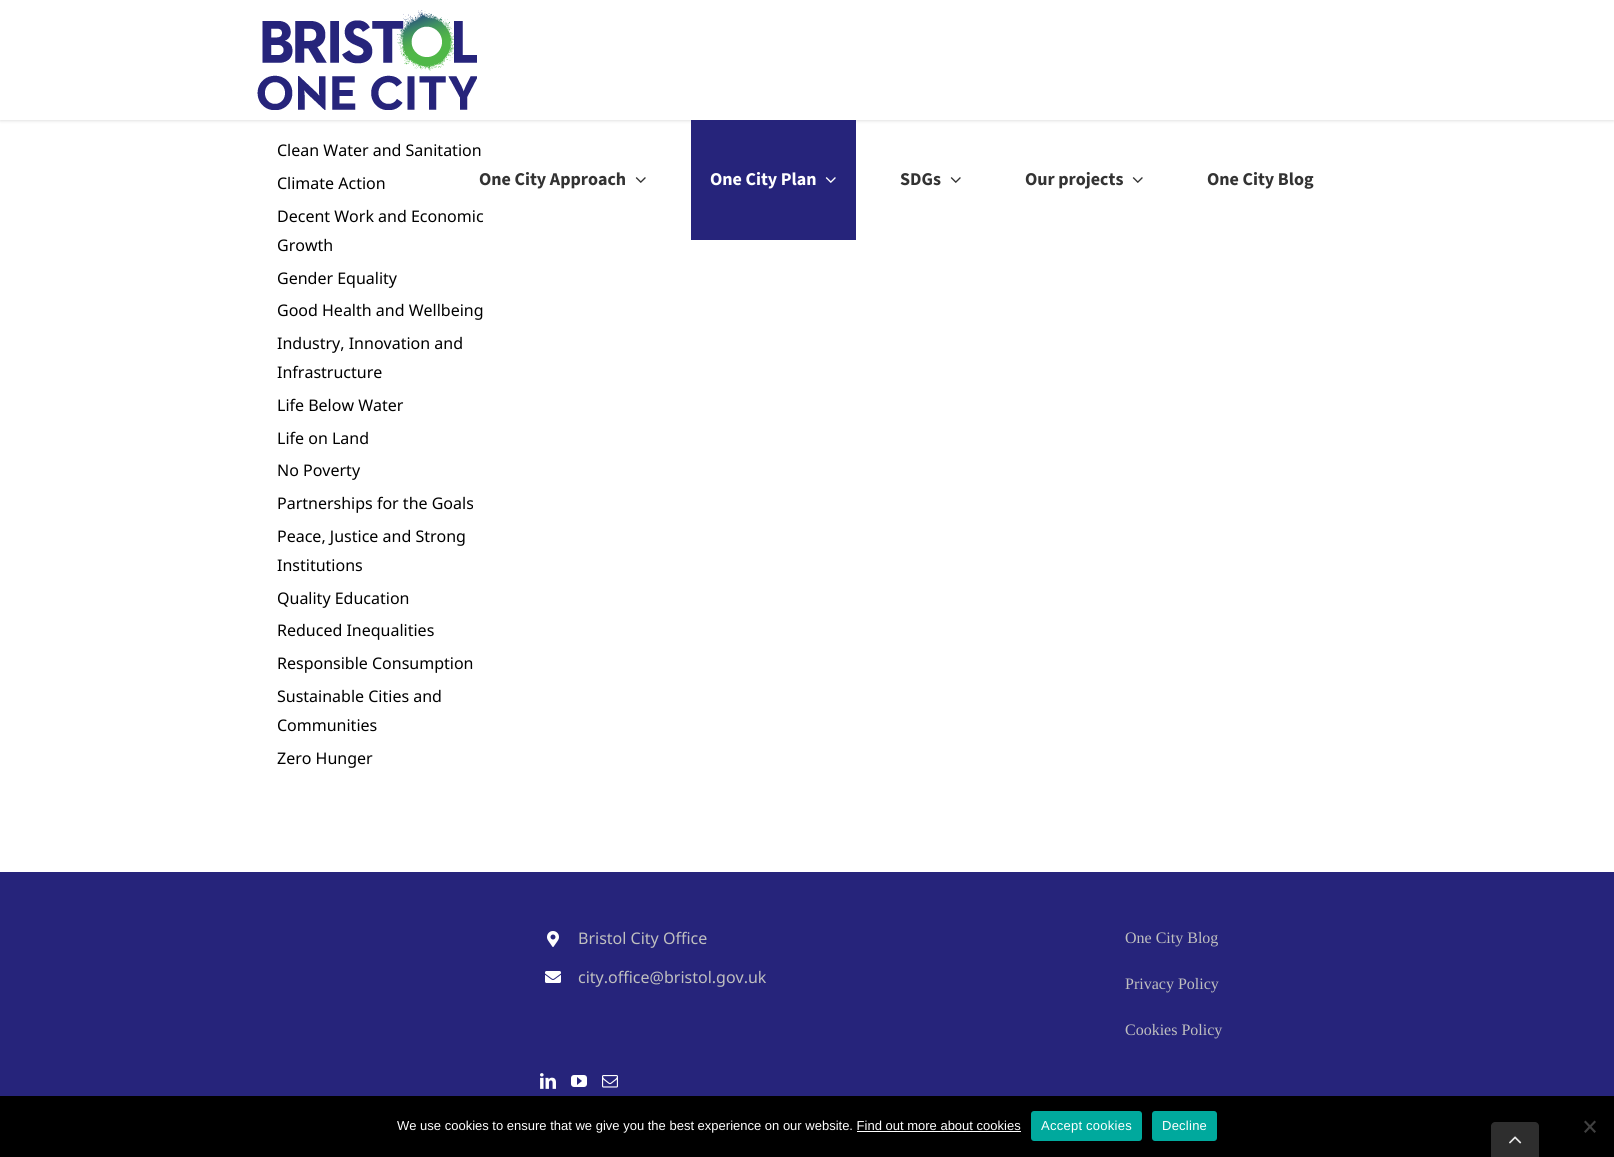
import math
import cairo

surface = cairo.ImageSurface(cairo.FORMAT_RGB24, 1614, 1157)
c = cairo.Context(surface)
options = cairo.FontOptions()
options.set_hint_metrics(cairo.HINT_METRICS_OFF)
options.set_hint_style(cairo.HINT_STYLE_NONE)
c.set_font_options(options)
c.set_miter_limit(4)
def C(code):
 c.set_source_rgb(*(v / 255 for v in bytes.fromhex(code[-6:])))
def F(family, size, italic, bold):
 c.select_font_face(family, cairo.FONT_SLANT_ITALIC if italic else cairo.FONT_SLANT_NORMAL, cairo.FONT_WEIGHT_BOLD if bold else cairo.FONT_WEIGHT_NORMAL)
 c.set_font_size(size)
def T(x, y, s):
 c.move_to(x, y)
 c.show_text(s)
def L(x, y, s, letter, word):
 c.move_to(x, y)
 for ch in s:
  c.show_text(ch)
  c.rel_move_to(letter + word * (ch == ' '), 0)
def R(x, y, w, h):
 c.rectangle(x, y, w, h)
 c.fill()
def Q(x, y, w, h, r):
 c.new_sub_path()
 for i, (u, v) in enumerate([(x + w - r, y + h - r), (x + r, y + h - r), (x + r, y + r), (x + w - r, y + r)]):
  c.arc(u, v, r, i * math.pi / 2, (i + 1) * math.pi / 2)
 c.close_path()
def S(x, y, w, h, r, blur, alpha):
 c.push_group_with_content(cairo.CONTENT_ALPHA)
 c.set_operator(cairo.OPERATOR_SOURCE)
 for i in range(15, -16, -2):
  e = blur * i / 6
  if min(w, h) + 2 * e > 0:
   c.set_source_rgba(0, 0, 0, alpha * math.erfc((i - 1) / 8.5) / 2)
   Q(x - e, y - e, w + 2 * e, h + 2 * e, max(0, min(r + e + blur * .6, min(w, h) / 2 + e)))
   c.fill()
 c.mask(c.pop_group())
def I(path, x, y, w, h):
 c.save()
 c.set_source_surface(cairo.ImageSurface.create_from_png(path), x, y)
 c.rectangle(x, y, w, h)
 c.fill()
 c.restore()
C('ffffff')
c.paint()
F('Noto Sans',16,0,0)
C('000000')
T(277,156,'Clean Water and Sanitation')
T(277,189,'Climate Action')
T(277,222,'Decent Work and Economic')
T(277,251,'Growth')
T(277,284,'Gender Equality')
T(277,316,'Good Health and Wellbeing')
T(277,349,'Industry, Innovation and')
T(277,378,'Infrastructure')
T(277,411,'Life Below Water')
T(277,444,'Life on Land')
T(277,476,'No Poverty')
T(277,509,'Partnerships for the Goals')
T(277,542,'Peace, Justice and Strong')
T(277,571,'Institutions')
T(277,604,'Quality Education')
T(277,636,'Reduced Inequalities')
T(277,669,'Responsible Consumption')
T(277,702,'Sustainable Cities and')
T(277,731,'Communities')
T(277,764,'Zero Hunger')
C('000000')
S(0,1,1614,120,0,1.5,.12)
C('ffffff')
R(0,0,1614,120)
I('1.png',257,10,220,100)
F('Source Sans 3',18,0,1)
C('333333')
T(479,185,'One City Approach')
I('2.png',635,177,11,6)
C('26247b')
R(691,120,165,120)
C('ffffff')
T(710,185,'One City Plan')
I('3.png',825,177,11,6)
C('333333')
T(900,185,'SDGs')
I('2.png',950,177,11,6)
T(1025,185,'Our projects')
I('2.png',1132,177,11,6)
T(1207,185,'One City Blog')
C('26247b')
R(0,872,1614,224)
I('4.png',547,931,12,16)
F('Noto Sans',16,0,0)
C('bfbfbf')
T(578,944,'Bristol City Office')
I('5.png',545,971,16,12)
T(578,983,'city.office@bristol.gov.uk')
I('6.png',540,1073,16,16)
I('7.png',571,1075,16,12)
I('8.png',602,1075,16,13)
F('Liberation Serif',16,0,0)
T(1125,943,'One City Blog')
T(1125,989,'Privacy Policy')
T(1125,1035,'Cookies Policy')
C('000000')
R(0,1096,1614,61)
F('Liberation Sans',13,0,0)
C('ffffff')
T(397,1130,'We use cookies to ensure that we give you the best experience on our website. Find out more about cookies')
R(857,1131,164,1)
C('00a99d')
Q(1031,1111,111,30,3)
c.fill()
C('ffffff')
L(1041,1130,'Accept cookies',.25,0)
C('00a99d')
Q(1152,1111,65,30,3)
c.fill()
C('ffffff')
L(1162,1130,'Decline',.25,0)
C('404040')
c.new_path()
c.move_to(1594.5,1120.5)
c.line_to(1596,1122)
c.line_to(1585.5,1133)
c.line_to(1584,1131.5)
c.close_path()
c.fill()
c.new_path()
c.move_to(1584,1122)
c.line_to(1585.5,1120.5)
c.line_to(1596,1131.5)
c.line_to(1594.5,1133)
c.close_path()
c.fill()
C('2e2e2e')
c.new_path()
c.move_to(1495,1122)
c.line_to(1535,1122)
c.curve_to(1537,1122,1539,1124,1539,1126)
c.line_to(1539,1157)
c.line_to(1491,1157)
c.line_to(1491,1126)
c.curve_to(1491,1124,1493,1122,1495,1122)
c.close_path()
c.fill()
I('9.png',1509,1136,13,8)
surface.write_to_png('o.png')
